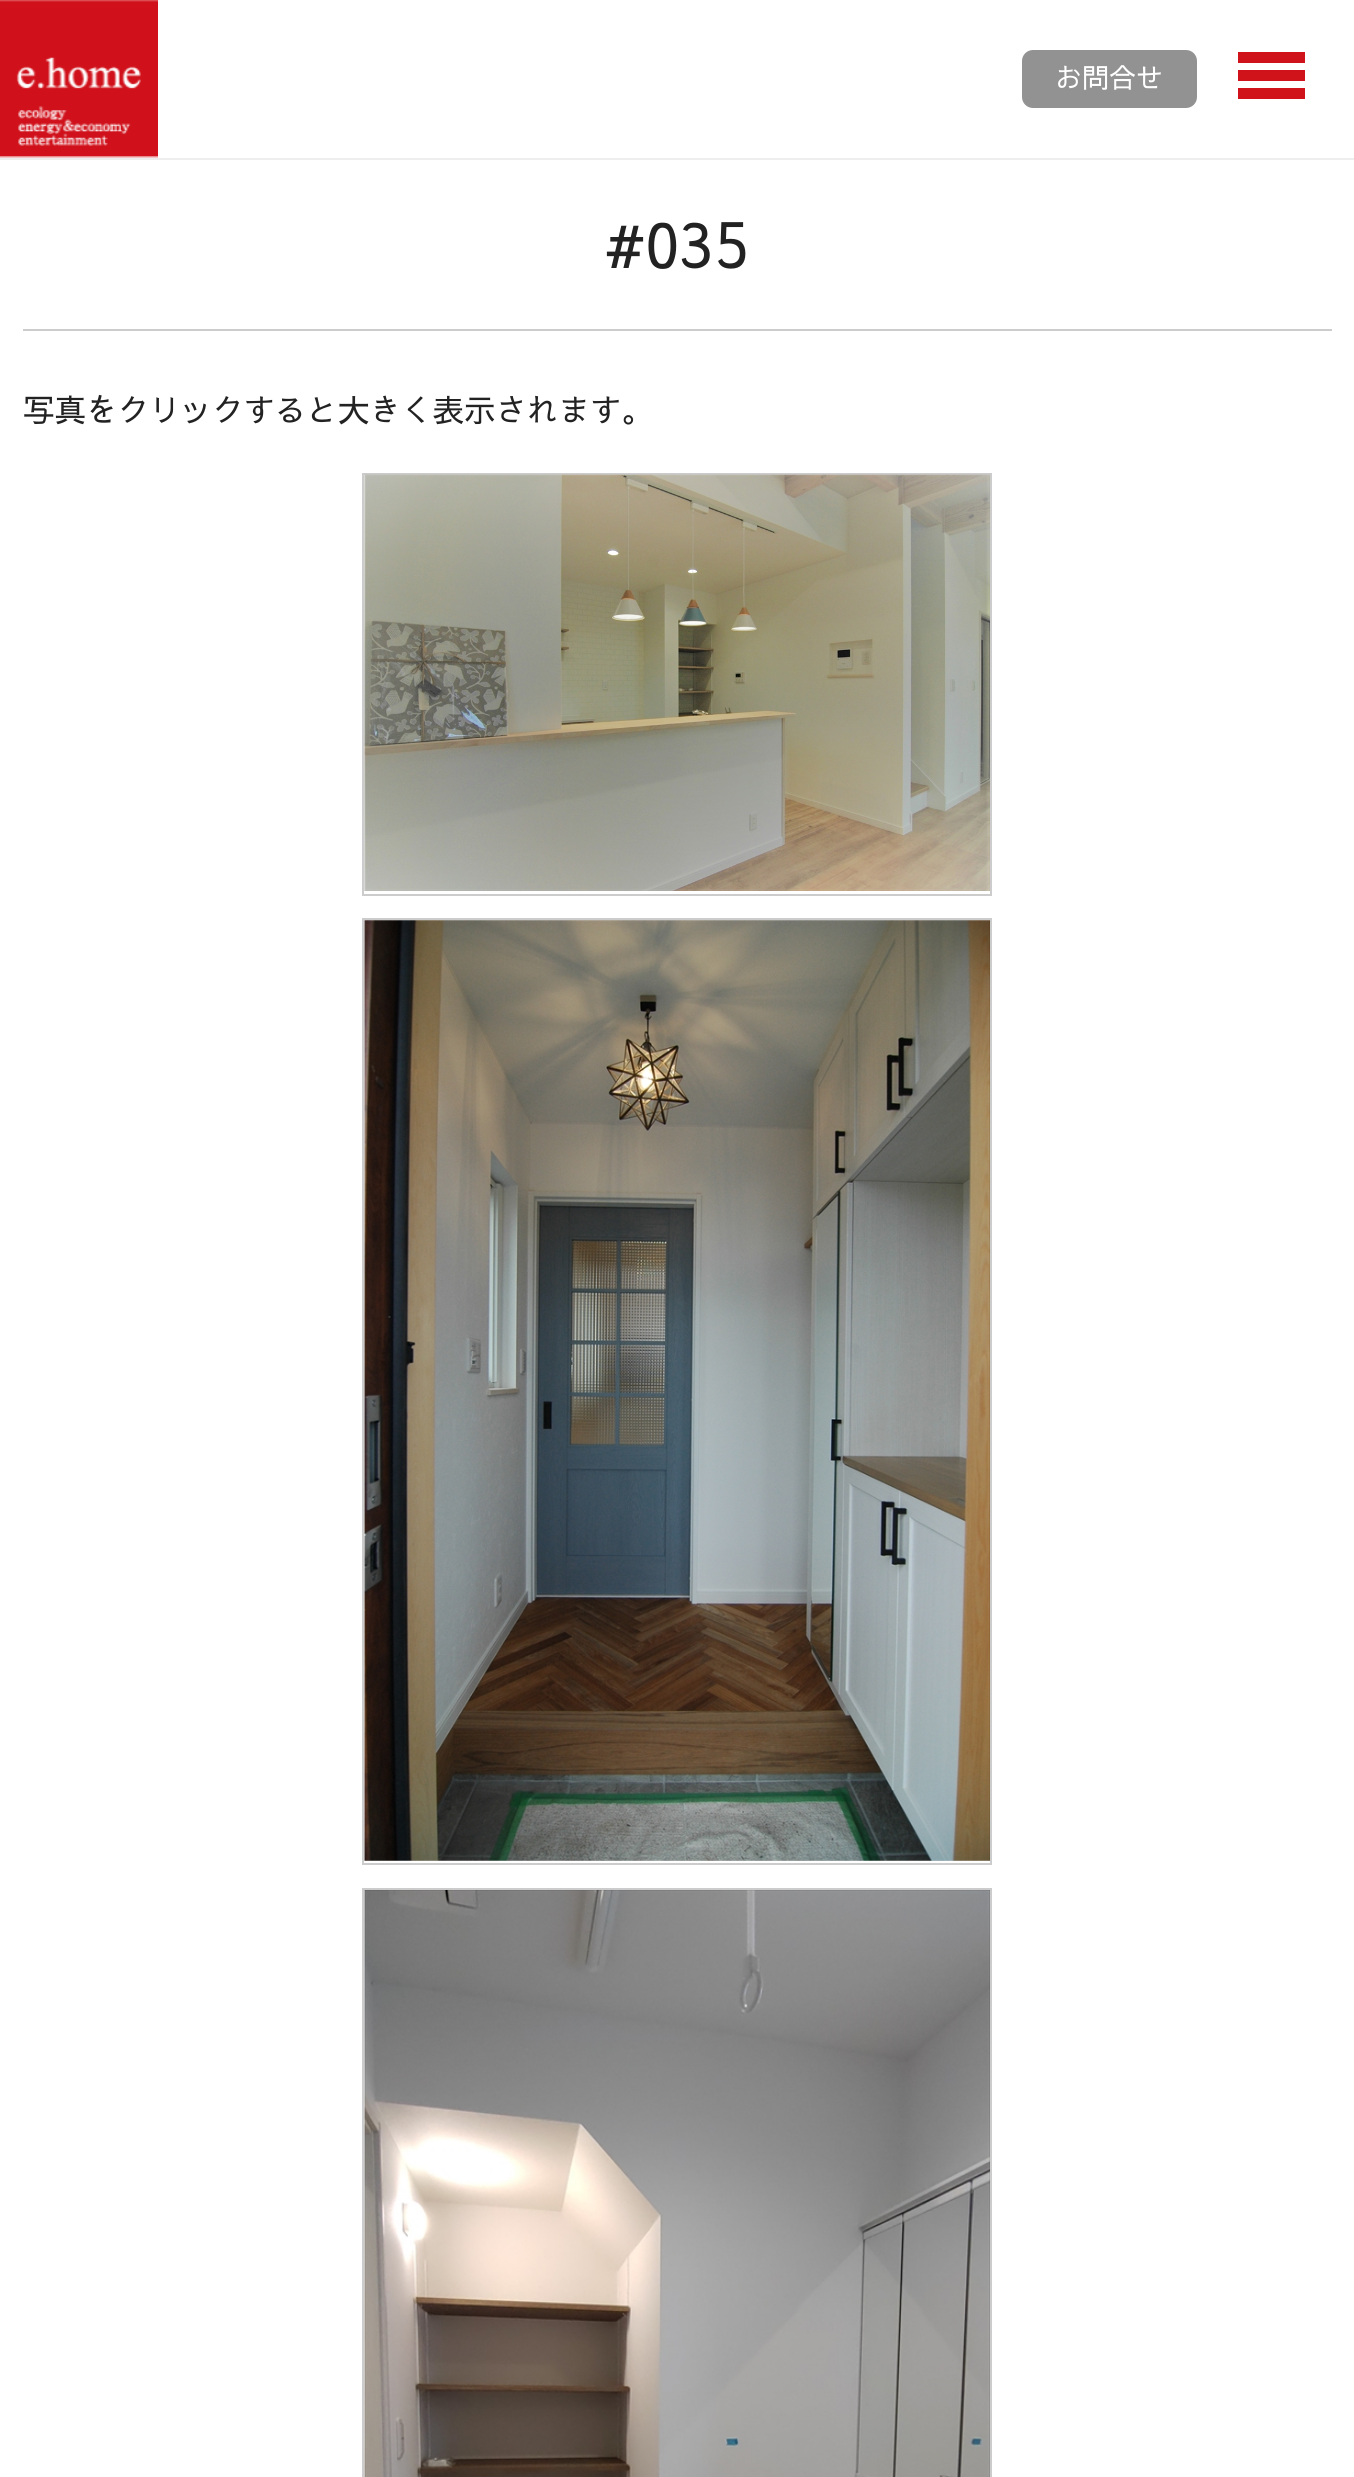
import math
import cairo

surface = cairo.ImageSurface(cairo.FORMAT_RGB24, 1354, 2477)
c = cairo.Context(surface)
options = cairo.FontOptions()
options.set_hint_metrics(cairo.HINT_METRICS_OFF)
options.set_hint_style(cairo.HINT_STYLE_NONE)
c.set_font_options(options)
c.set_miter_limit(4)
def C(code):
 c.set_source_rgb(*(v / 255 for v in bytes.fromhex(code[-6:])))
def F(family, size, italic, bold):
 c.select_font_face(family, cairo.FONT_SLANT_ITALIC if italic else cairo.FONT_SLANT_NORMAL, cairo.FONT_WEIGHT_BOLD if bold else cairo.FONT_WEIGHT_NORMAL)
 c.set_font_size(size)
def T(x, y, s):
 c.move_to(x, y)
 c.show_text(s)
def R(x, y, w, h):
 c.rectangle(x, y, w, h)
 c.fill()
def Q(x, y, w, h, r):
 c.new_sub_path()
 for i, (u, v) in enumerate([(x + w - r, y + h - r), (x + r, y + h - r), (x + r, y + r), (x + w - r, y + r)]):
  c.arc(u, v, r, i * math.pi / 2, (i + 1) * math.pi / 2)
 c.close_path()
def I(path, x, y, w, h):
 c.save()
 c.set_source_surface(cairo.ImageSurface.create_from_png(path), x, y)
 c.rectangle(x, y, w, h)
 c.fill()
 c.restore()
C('ffffff')
c.paint()
C('eeeeee')
R(0,158,1354,2)
I('1.png',0,0,158,158)
C('929292')
Q(1022,50,175,58,11)
c.fill()
F('Sawarabi Gothic',27,0,0)
C('ffffff')
T(1055,88,'お問合せ')
C('d0121b')
R(1238,52,67,11)
R(1238,70,67,11)
R(1238,88,67,11)
C('cccccc')
R(23,329,1309,2)
F('Sawarabi Gothic',63,0,0)
C('222222')
T(605,268,'#035')
F('Sawarabi Gothic',31.5,0,0)
T(23,422,'写真をクリックすると大きく表示されます。')
c.rectangle(363,474,628,421)
C('cccccc')
c.stroke()
I('2.png',364,474,626,417)
c.rectangle(363,919,628,945)
c.stroke()
I('3.png',364,920,626,941)
c.rectangle(363,1889,628,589)
c.stroke()
I('4.png',364,1890,626,587)
surface.write_to_png('o.png')
